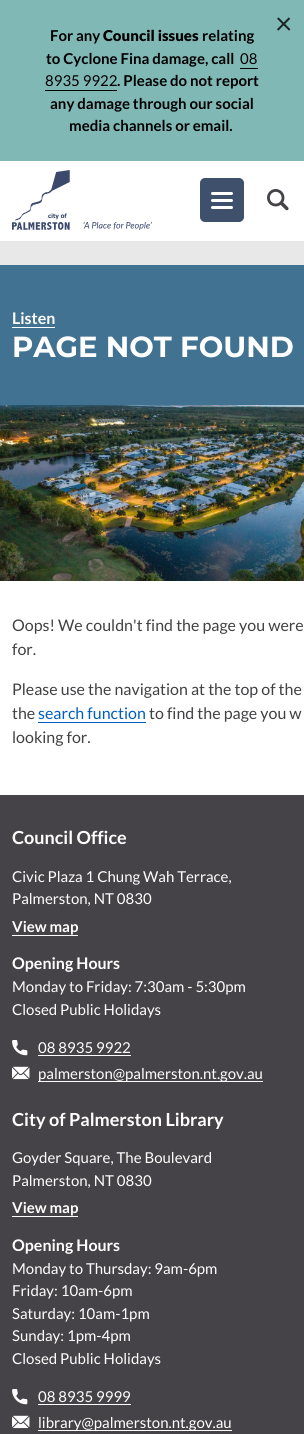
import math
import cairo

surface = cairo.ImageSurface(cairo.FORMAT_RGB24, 304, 1434)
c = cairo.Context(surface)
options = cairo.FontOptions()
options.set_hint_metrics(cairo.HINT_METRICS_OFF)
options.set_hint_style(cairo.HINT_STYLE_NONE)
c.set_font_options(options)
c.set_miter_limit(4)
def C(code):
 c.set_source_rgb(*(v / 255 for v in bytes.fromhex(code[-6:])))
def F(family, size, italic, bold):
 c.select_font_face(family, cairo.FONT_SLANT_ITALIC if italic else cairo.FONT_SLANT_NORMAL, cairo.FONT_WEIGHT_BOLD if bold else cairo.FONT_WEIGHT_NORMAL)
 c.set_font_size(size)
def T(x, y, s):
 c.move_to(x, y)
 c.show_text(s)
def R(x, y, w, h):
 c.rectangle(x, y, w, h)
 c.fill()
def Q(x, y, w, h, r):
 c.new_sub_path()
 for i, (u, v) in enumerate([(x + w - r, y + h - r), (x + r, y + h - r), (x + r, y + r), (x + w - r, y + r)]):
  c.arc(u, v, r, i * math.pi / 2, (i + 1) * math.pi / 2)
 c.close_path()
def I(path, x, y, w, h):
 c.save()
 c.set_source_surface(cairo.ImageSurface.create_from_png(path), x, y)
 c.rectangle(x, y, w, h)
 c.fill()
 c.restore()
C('ffffff')
c.paint()
C('80b8b6')
R(0,0,304,161)
F('Lato',30,0,0)
C('1a2524')
T(275,34,'×')
F('Lato',15,0,1)
C('000000')
T(50,41,'For any')
F('Lato Black',15,0,0)
T(103,41,'Council issues')
F('Lato',15,0,1)
T(202,41,'relating')
T(46,64,'to Cyclone Fina damage, call')
F('Lato',15,0,0)
T(240,64,'08')
R(240,68,18,1)
T(45,86,'8935 9922')
R(45,90,72,1)
F('Lato',15,0,1)
T(117,86,'. Please do not report')
T(50,109,'any damage through our social')
T(69,131,'media channels or email.')
I('1.png',12,170,140,60)
C('3f506d')
Q(200,178,44,44,5)
c.fill()
C('ffffff')
Q(211,192,22,3,1.5)
c.fill()
Q(211,199,22,3,1.5)
c.fill()
Q(211,206,22,3,1.5)
c.fill()
I('2.png',267,189,22,22)
C('e8e8e8')
R(0,241,304,24)
C('417291')
R(0,265,304,140)
F('Lato',16,0,1)
C('ffffff')
T(12,324,'Listen')
R(12,327,43,1)
F('Montserrat',29.1,0,1)
T(12,357,'PAGE NOT FOUND')
I('3.png',0,405,304,176)
F('Lato',16,0,0)
C('414042')
T(12,631,'Oops! We couldn\'t find the page you were')
T(12,655,'for.')
T(12,695,'Please use the navigation at the top of the')
T(12,719,'the')
C('005ebe')
T(38,719,'search function')
R(38,722,108,1)
C('414042')
T(149,719,'to find the page you w')
T(12,743,'looking for.')
C('454347')
R(0,795,304,639)
F('Lato',18,0,1)
C('ffffff')
T(12,844,'Council Office')
F('Lato',15,0,0)
T(12,882,'Civic Plaza 1 Chung Wah Terrace,')
T(12,904,'Palmerston, NT 0830')
F('Lato',15,0,1)
T(12,932,'View map')
R(12,935,66,1)
F('Lato',16,0,1)
T(12,969,'Opening Hours')
F('Lato',15,0,0)
T(12,992,'Monday to Friday: 7:30am - 5:30pm')
T(12,1015,'Closed Public Holidays')
I('4.png',12,1040,16,16)
T(38,1053,'08 8935 9922')
R(38,1055,93,1)
I('5.png',12,1066,18,14)
R(38,1081,225,1)
T(38,1079,'palmerston@palmerston.nt.gov.au')
F('Lato',18,0,1)
T(12,1126,'City of Palmerston Library')
F('Lato',15,0,0)
T(12,1163,'Goyder Square, The Boulevard')
T(12,1186,'Palmerston, NT 0830')
F('Lato',15,0,1)
T(12,1213,'View map')
R(12,1216,66,1)
F('Lato',16,0,1)
T(12,1251,'Opening Hours')
F('Lato',15,0,0)
T(12,1274,'Monday to Thursday: 9am-6pm')
T(12,1296,'Friday: 10am-6pm')
T(12,1319,'Saturday: 10am-1pm')
T(12,1341,'Sunday: 1pm-4pm')
T(12,1364,'Closed Public Holidays')
I('4.png',12,1389,16,16)
T(38,1402,'08 8935 9999')
R(38,1404,93,1)
I('5.png',12,1415,18,14)
R(38,1430,194,1)
T(38,1428,'library@palmerston.nt.gov.au')
surface.write_to_png('o.png')
